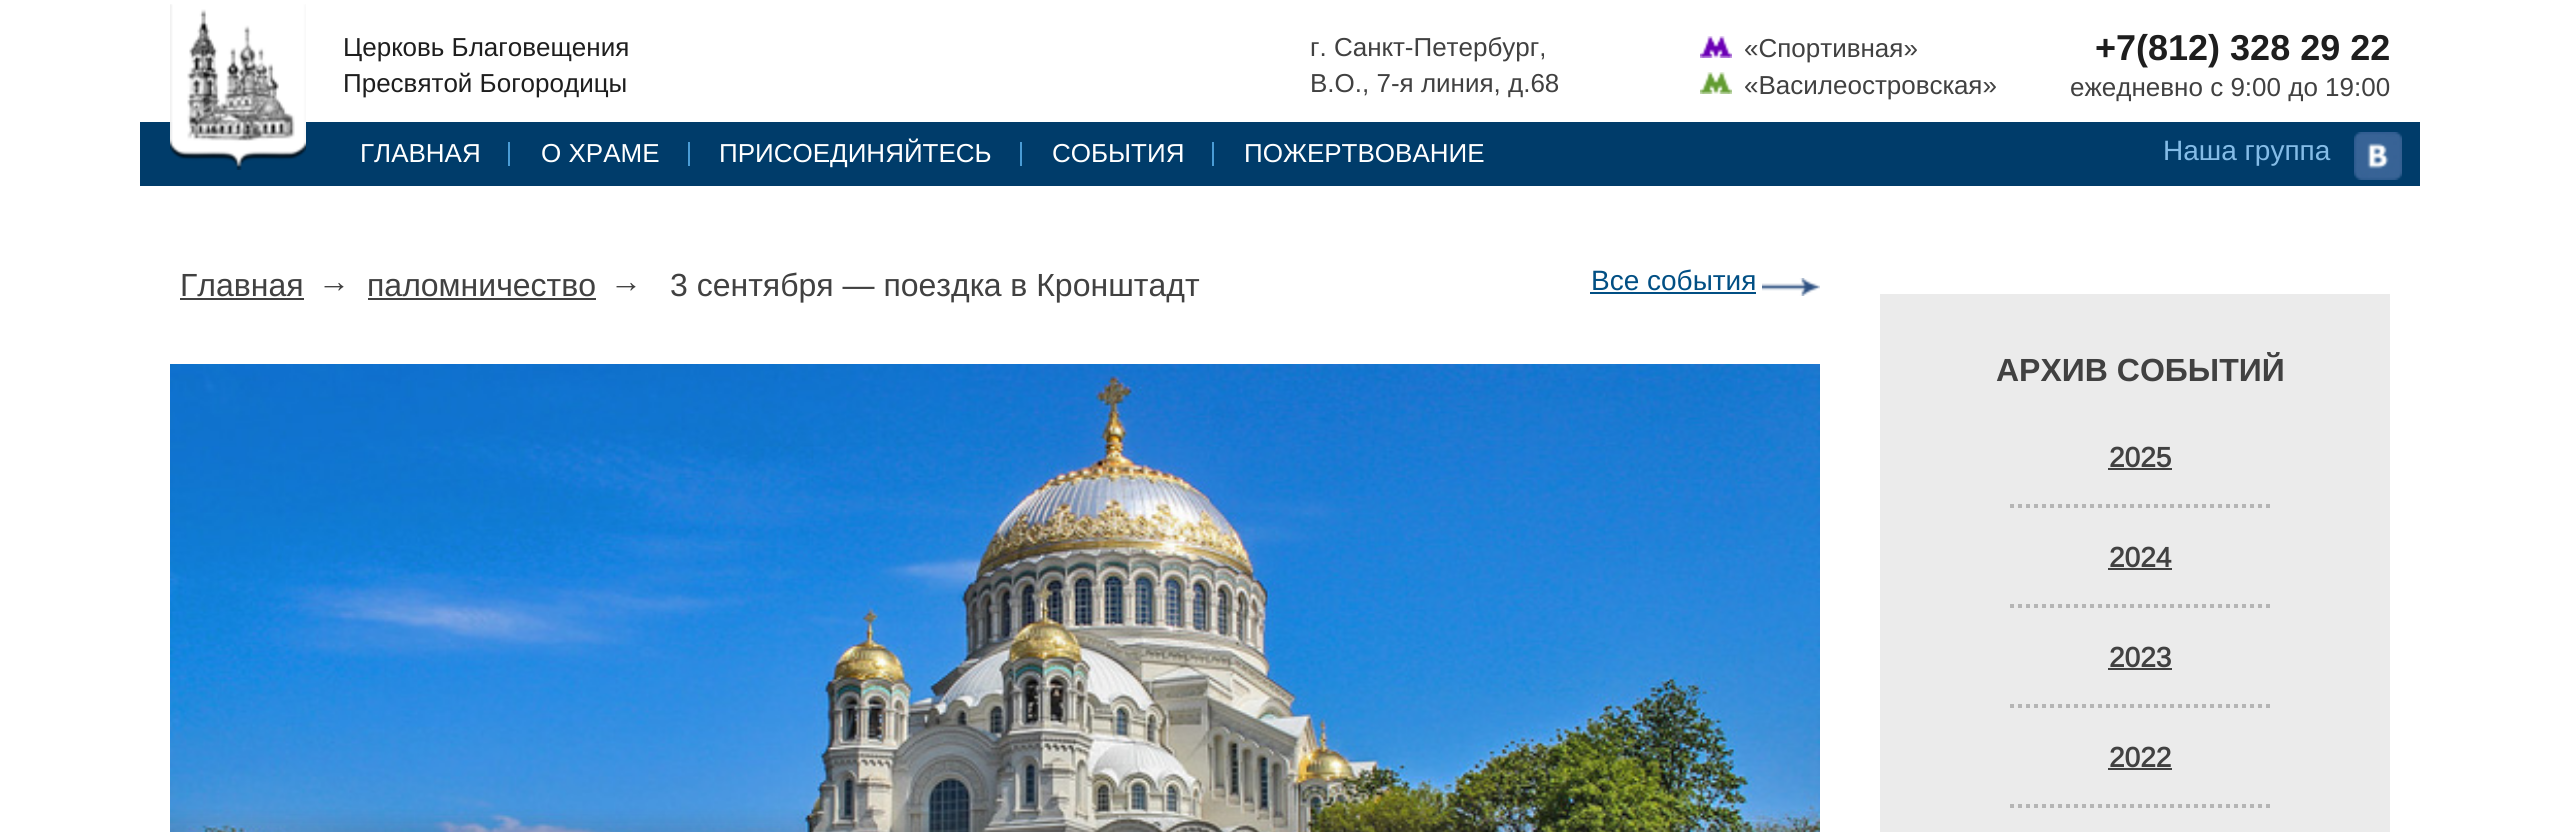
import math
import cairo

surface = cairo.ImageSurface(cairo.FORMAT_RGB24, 2560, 832)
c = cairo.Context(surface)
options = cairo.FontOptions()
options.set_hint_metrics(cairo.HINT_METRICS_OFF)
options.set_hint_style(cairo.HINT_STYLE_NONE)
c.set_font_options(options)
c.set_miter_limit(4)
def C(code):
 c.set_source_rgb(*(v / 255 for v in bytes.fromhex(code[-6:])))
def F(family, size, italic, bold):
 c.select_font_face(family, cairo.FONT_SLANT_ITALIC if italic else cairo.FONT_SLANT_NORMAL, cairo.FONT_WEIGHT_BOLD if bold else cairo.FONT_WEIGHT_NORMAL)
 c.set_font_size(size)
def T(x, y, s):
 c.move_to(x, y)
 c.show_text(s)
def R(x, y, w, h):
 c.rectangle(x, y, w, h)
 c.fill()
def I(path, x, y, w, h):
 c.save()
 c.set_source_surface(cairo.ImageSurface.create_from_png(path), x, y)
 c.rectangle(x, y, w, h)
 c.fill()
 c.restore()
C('ffffff')
c.paint()
C('003c6a')
R(140,122,2280,64)
I('1.png',170,4,136,166)
F('Arimo',26,0,0)
C('1e1e1e')
T(343,56,'Церковь Благовещения')
T(343,92,'Пресвятой Богородицы')
C('414141')
T(1310,56,'г. Санкт-Петербург,')
T(1310,92,'В.О., 7-я линия, д.68')
I('2.png',1700,36,32,22)
T(1744,57,'«Спортивная»')
I('3.png',1700,72,32,22)
T(1744,94,'«Василеостровская»')
F('Arimo',36,0,1)
C('1e1e1e')
T(2095,60,'+7(812) 328 29 22')
F('Arimo',26,0,0)
C('414141')
T(2070,96,'ежедневно с 9:00 до 19:00')
C('ffffff')
T(360,162,'ГЛАВНАЯ')
C('4a9cd5')
R(508,142,2,24)
C('ffffff')
T(541,162,'О ХРАМЕ')
C('4a9cd5')
R(688,142,2,24)
C('ffffff')
T(719,162,'ПРИСОЕДИНЯЙТЕСЬ')
C('4a9cd5')
R(1020,142,2,24)
C('ffffff')
T(1052,162,'СОБЫТИЯ')
C('4a9cd5')
R(1212,142,2,24)
C('ffffff')
T(1244,162,'ПОЖЕРТВОВАНИЕ')
F('Arimo',28,0,0)
C('84bce7')
T(2163,160,'Наша группа')
I('4.png',2354,132,48,48)
F('Arimo',32,0,0)
C('414141')
T(180,296,'Главная')
R(180,298,124,2)
T(318,292,'→')
T(367,296,'паломничество')
R(368,298,228,2)
T(610,292,'→')
T(670,296,'3 сентября — поездка в Кронштадт')
F('Arimo',28,0,0)
C('014f84')
T(1591,290,'Все события')
R(1590,292,166,2)
I('5.png',1762,278,58,18)
I('6.png',170,364,1650,468)
C('ebebeb')
R(1880,294,510,538)
F('Arimo',32,0,1)
C('414141')
T(1996,381,'АРХИВ СОБЫТИЙ')
c.new_path()
c.move_to(2010,506)
c.line_to(2270,506)
C('b5b5b5')
c.set_line_width(4)
c.set_dash([4,4])
c.stroke()
F('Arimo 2',28,0,1)
C('414141')
T(2109,467,'2025')
R(2108,468,64,2)
c.new_path()
c.move_to(2010,606)
c.line_to(2270,606)
C('b5b5b5')
c.stroke()
C('414141')
T(2109,567,'2024')
R(2108,568,64,2)
c.new_path()
c.move_to(2010,706)
c.line_to(2270,706)
C('b5b5b5')
c.stroke()
C('414141')
T(2109,667,'2023')
R(2108,668,64,2)
c.new_path()
c.move_to(2010,806)
c.line_to(2270,806)
C('b5b5b5')
c.stroke()
C('414141')
T(2109,767,'2022')
R(2108,768,64,2)
surface.write_to_png('o.png')
